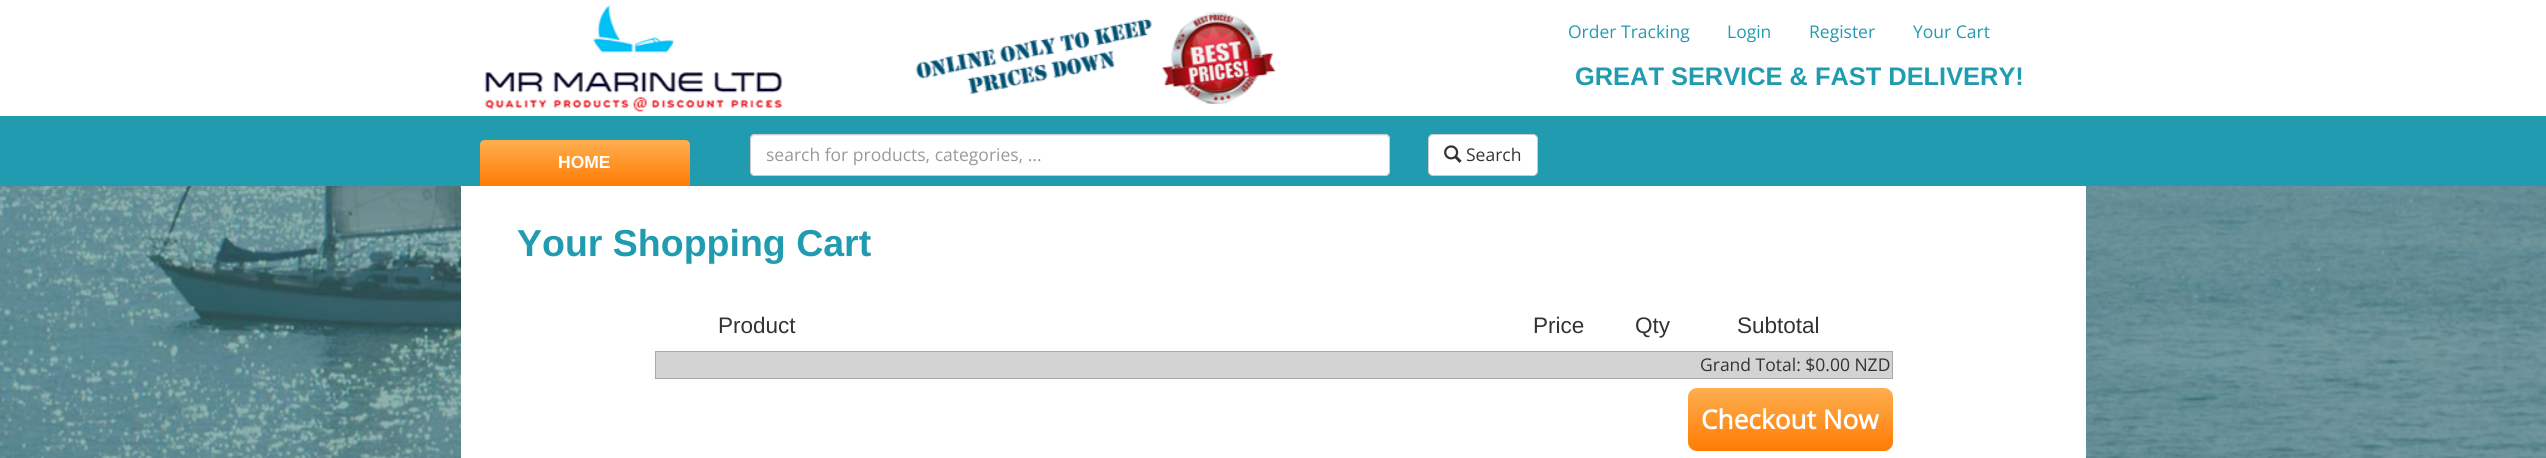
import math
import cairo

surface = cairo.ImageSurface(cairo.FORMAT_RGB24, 2546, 458)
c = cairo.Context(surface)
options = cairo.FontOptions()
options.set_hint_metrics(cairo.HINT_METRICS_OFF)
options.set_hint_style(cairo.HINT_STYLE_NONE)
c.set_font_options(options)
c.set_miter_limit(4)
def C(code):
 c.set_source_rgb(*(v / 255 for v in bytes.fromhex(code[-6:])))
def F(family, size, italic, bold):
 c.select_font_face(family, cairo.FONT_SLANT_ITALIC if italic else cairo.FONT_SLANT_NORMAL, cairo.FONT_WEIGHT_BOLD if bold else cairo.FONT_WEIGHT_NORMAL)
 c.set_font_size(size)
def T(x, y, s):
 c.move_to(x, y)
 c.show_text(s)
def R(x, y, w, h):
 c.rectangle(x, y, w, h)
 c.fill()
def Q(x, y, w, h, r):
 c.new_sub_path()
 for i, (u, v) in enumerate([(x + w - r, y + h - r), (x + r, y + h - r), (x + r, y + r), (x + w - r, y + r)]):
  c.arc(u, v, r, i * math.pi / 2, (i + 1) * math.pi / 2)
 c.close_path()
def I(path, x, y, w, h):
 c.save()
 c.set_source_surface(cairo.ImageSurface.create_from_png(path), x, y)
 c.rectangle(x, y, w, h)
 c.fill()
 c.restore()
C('ffffff')
c.paint()
I('1.png',0,186,2546,272)
I('2.png',484,5,299,107)
I('3.png',915,12,361,92)
F('Open Sans',17.5,0,0)
C('219baf')
T(1568,38,'Order Tracking')
T(1727,38,'Login')
T(1809,38,'Register')
T(1913,38,'Your Cart')
F('Liberation Sans',25.4,0,1)
T(1575,85,'GREAT SERVICE & FAST DELIVERY!')
R(0,116,2546,70)
gradient = cairo.LinearGradient(585,186,585,140)
gradient.add_color_stop_rgba(0,1,0.482,0.012,1)
gradient.add_color_stop_rgba(1,0.996,0.686,0.314,1)
c.set_source(gradient)
c.new_path()
c.move_to(485,140)
c.line_to(685,140)
c.curve_to(688,140,690,142,690,145)
c.line_to(690,186)
c.line_to(480,186)
c.line_to(480,145)
c.curve_to(480,142,482,140,485,140)
c.close_path()
c.fill()
F('Liberation Sans',17.5,0,1)
C('ffffff')
T(558,168,'HOME')
Q(750,134,640,42,5)
c.fill()
C('ececec')
c.new_path()
c.move_to(755,136)
c.line_to(1385,136)
c.curve_to(1387,136,1389,138,1389,140)
c.curve_to(1389,137,1388,135,1385,135)
c.line_to(755,135)
c.curve_to(752,135,751,137,751,140)
c.curve_to(751,138,753,136,755,136)
c.close_path()
c.fill()
Q(750.5,134.5,639,41,4.5)
C('cccccc')
c.set_line_width(1)
c.stroke()
F('Open Sans',17.5,0,0)
C('999999')
T(766,161,'search for products, categories, ...')
C('ffffff')
Q(1428.5,134.5,109,41,4.5)
c.fill_preserve()
C('cccccc')
c.stroke()
I('4.png',1444,145,18,18)
C('333333')
T(1466,161,'Search')
C('ffffff')
R(461,186,1625,272)
F('Liberation Sans',37.5,0,1)
C('219baf')
T(517,256,'Your Shopping Cart')
F('Liberation Sans',22.5,0,0)
C('333333')
T(718,333,'Product')
T(1533,333,'Price')
T(1635,333,'Qty')
T(1737,333,'Subtotal')
C('d3d3d3')
c.rectangle(655.5,351.5,1237,27)
c.fill_preserve()
C('a9a9a9')
c.stroke()
F('Open Sans',17.5,0,0)
C('333333')
T(1700,371,'Grand Total: $0.00 NZD')
gradient = cairo.LinearGradient(1790,451,1790,388)
gradient.add_color_stop_rgba(0,1,0.482,0.012,1)
gradient.add_color_stop_rgba(1,0.996,0.686,0.314,1)
c.set_source(gradient)
Q(1688,388,205,63,9)
c.fill()
F('Open Sans',26.25,0,1)
C('ffffff')
T(1701,429,'Checkout Now')
surface.write_to_png('o.png')
